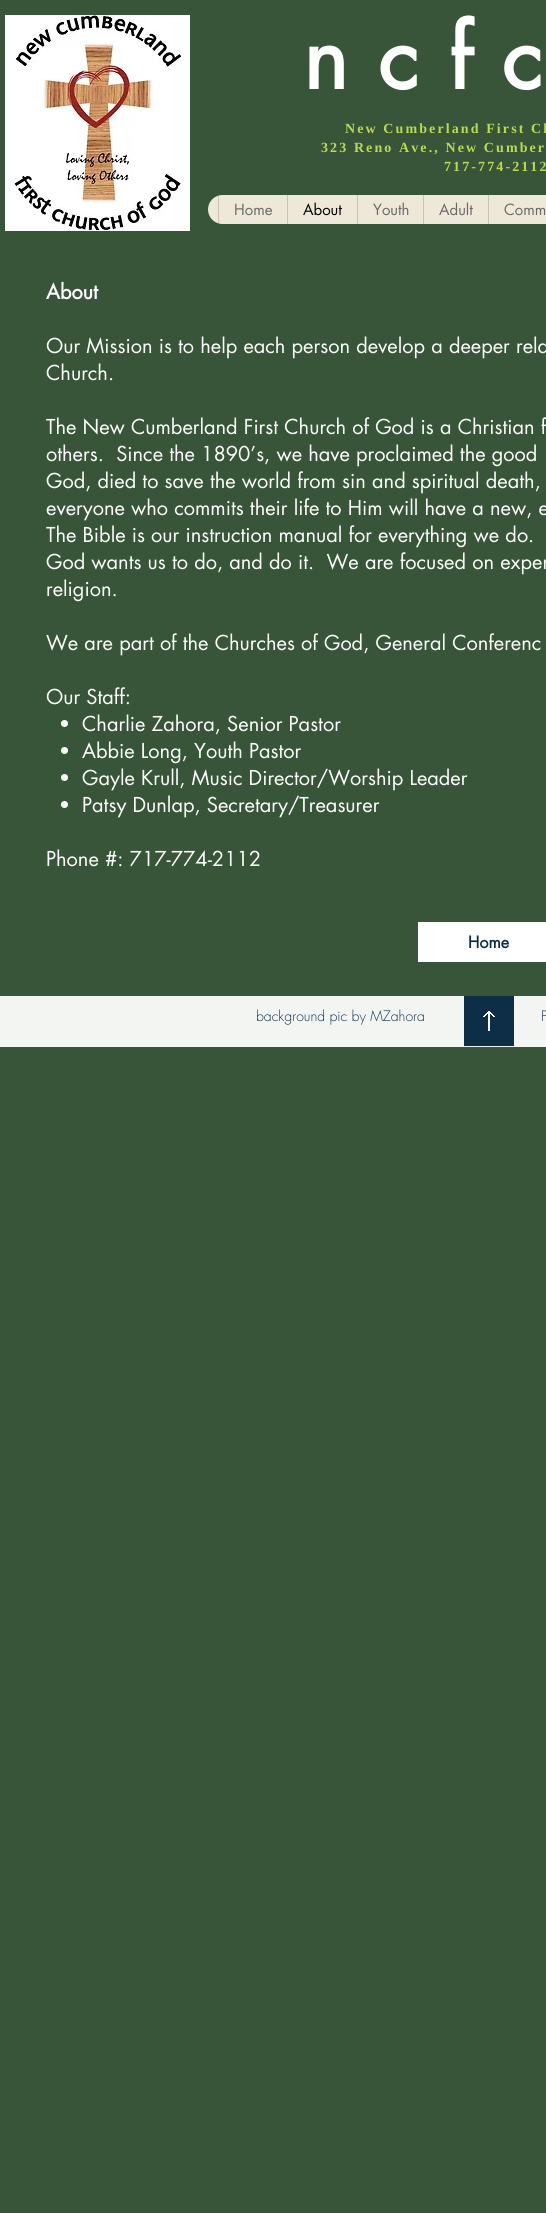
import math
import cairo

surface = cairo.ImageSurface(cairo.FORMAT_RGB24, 546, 2213)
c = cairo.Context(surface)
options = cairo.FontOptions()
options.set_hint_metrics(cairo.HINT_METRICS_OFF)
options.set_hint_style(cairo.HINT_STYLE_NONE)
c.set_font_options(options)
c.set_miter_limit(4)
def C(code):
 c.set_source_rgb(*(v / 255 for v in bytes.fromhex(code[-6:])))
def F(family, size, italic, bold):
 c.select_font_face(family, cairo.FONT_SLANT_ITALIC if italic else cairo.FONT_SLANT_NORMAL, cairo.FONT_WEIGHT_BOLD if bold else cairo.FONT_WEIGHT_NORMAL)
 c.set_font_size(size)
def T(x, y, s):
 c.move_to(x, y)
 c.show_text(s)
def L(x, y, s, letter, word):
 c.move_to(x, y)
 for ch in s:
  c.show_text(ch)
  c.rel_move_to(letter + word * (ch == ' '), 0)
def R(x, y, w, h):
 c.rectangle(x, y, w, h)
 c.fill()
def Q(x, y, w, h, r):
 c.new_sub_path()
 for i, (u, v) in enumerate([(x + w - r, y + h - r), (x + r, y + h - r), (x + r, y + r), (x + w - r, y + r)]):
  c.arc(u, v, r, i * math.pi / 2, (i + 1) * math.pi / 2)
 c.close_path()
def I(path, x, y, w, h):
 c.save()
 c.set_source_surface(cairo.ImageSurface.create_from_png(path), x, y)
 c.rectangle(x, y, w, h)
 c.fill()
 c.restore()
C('385539')
c.paint()
I('1.png',5,15,185,216)
F('futura',85,0,1)
C('ffffff')
L(303,89,'ncfc',30,0)
F('Liberation Serif',14,0,1)
C('bada55')
L(345,133,'New Cumberland First Ch',2.1,0)
L(321,152,'323 Reno Ave., New Cumber',2.1,0)
L(444,171,'717-774-2112',2.1,0)
C('eee8d8')
Q(208,195,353,29,14.5)
c.fill()
c.set_source_rgba(0.522,0.522,0.522,0.37)
R(218,195,1,29)
F('futura',15,0,0)
C('696969')
T(234,215,'Home')
C('c7c3b9')
R(287,195,1,29)
C('000000')
T(303,215,'About')
C('c7c3b9')
R(357,195,1,29)
C('696969')
T(373,215,'Youth')
C('c7c3b9')
R(423,195,1,29)
C('696969')
T(439,215,'Adult')
C('c7c3b9')
R(488,195,1,29)
C('696969')
T(504,215,'Comm')
F('futura',20,0,1)
C('ffffff')
T(46,299,'About')
F('futura',20,0,0)
T(46,353,'Our Mission is to help each person develop a deeper rela')
T(46,380,'Church.')
T(46,434,'The New Cumberland First Church of God is a Christian f')
T(46,461,'others.  Since the 1890’s, we have proclaimed the good')
T(46,488,'God, died to save the world from sin and spiritual death,')
T(46,515,'everyone who commits their life to Him will have a new, e')
T(46,542,'The Bible is our instruction manual for everything we do.')
T(46,569,'God wants us to do, and do it.  We are focused on exper')
T(46,596,'religion.')
T(46,650,'We are part of the Churches of God, General Conferenc')
T(46,704,'Our Staff:')
c.new_path()
c.arc(64.5,723.5,3.5,0,2 * math.pi)
c.fill()
T(82,731,'Charlie Zahora, Senior Pastor')
c.new_path()
c.arc(64.5,750.5,3.5,0,2 * math.pi)
c.fill()
T(82,758,'Abbie Long, Youth Pastor')
c.new_path()
c.arc(64.5,777.5,3.5,0,2 * math.pi)
c.fill()
T(82,785,'Gayle Krull, Music Director/Worship Leader')
c.new_path()
c.arc(64.5,804.5,3.5,0,2 * math.pi)
c.fill()
T(82,812,'Patsy Dunlap, Secretary/Treasurer')
T(46,866,'Phone #: 717-774-2112')
R(418,922,128,40)
F('futura',16,0,1)
C('0e2e47')
T(468,948,'Home')
C('f3f5f3')
R(0,996,546,51)
F('futura Light',14,0,0)
C('0e2e47')
T(256,1021,'background pic by MZahora')
I('2.png',464,996,50,50)
T(541,1021,'P')
surface.write_to_png('o.png')
